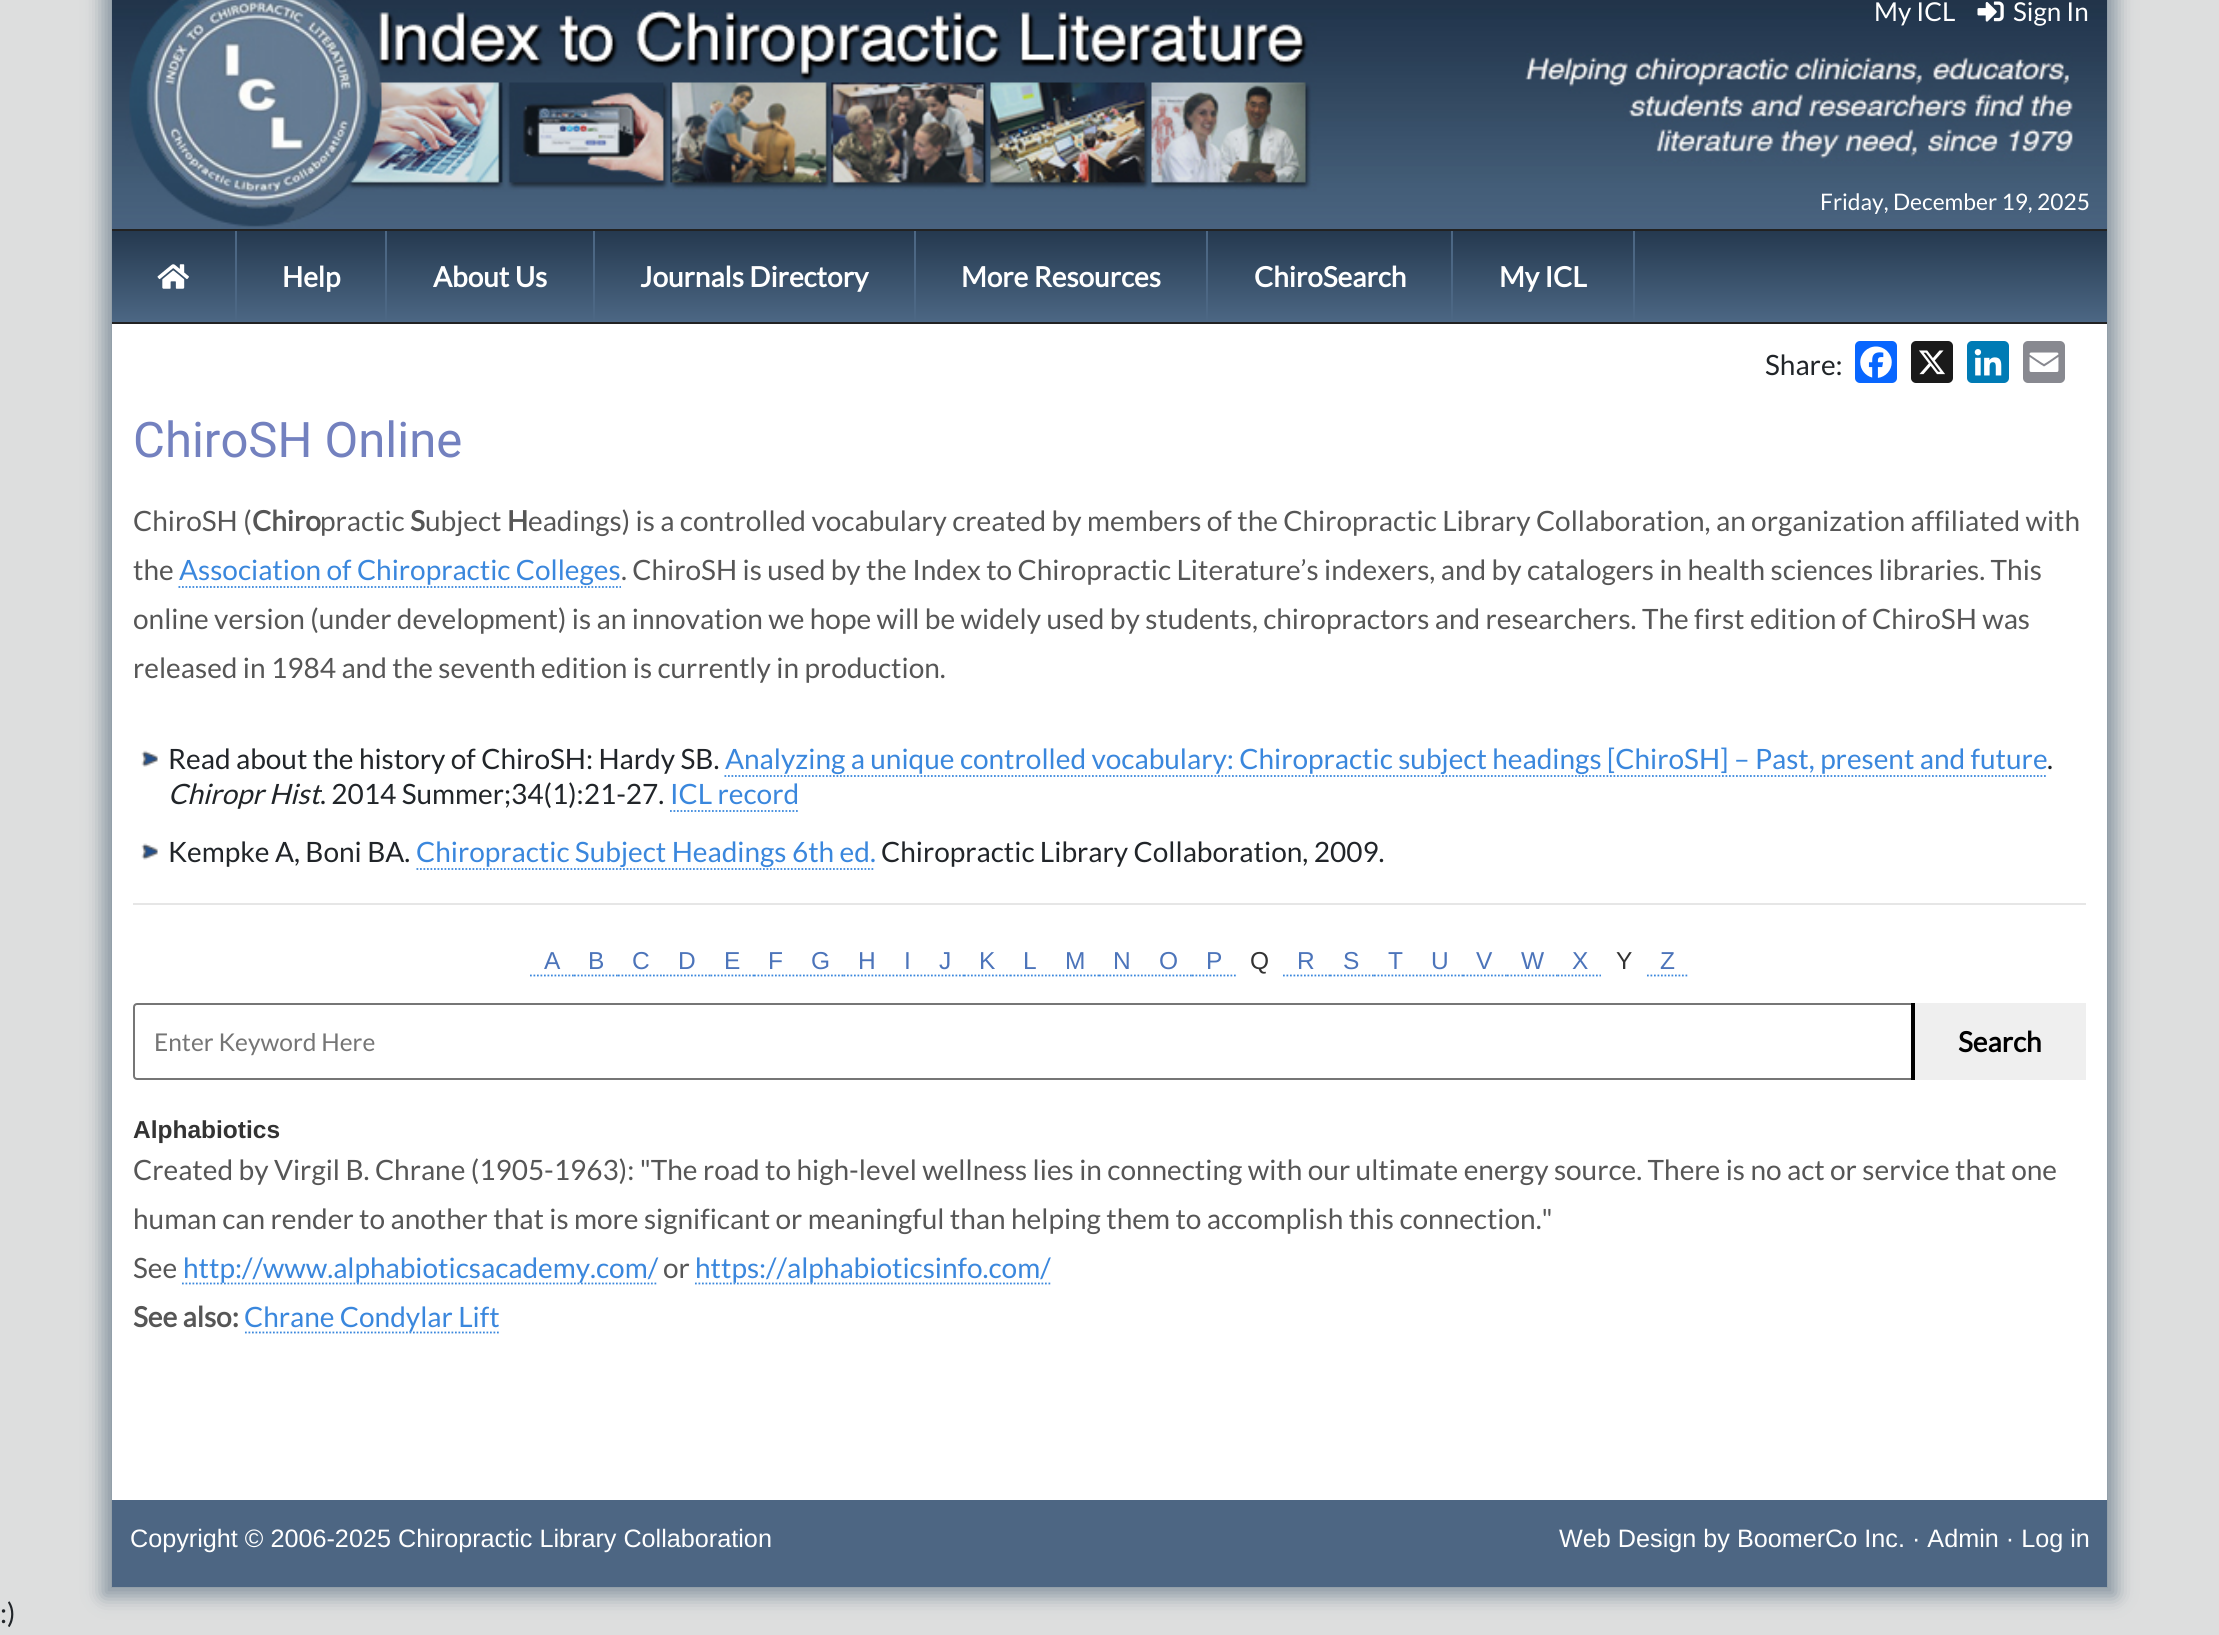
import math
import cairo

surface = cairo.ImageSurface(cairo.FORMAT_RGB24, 2219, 1635)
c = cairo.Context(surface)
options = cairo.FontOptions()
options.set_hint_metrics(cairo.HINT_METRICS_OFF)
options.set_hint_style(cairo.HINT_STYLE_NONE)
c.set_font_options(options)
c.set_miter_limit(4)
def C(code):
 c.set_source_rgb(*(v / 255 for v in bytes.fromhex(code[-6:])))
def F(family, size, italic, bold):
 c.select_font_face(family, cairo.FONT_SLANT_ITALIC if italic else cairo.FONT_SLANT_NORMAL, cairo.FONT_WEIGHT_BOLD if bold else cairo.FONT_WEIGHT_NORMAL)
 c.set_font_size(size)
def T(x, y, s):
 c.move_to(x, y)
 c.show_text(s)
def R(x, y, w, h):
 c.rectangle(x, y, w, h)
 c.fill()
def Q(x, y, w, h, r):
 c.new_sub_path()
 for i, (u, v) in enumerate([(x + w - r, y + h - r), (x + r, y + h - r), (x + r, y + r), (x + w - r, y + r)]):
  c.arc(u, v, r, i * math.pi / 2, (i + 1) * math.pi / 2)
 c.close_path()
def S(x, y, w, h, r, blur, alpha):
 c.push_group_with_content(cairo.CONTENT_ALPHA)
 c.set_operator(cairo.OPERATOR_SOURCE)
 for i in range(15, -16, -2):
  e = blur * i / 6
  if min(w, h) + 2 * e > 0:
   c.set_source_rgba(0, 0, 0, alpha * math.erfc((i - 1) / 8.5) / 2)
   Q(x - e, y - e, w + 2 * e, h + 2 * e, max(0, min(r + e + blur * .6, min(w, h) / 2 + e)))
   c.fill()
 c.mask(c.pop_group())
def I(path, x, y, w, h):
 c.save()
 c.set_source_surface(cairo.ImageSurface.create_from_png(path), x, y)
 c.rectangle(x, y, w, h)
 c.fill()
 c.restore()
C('dddede')
c.paint()
C('244059')
S(103,-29,2013,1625,0,9.5,.47)
C('ffffff')
R(112,324,1995,1176)
I('1.png',112,0,1995,229)
F('Lato',26,0,0)
T(1874,21,'My ICL')
I('2.png',1977,1,27,21)
T(2013,21,'Sign In')
F('Lato',22.75,0,0)
T(1820,210,'Friday, December 19, 2025')
gradient = cairo.LinearGradient(1110,231,1110,322)
gradient.add_color_stop_rgba(0,0.145,0.224,0.31,1)
gradient.add_color_stop_rgba(1,0.298,0.404,0.518,1)
c.set_source(gradient)
R(112,231,1995,91)
C('222222')
R(112,229,1995,2)
R(112,322,1995,2)
C('4c6784')
R(235,231,2,91)
I('3.png',157,264,32,25)
R(385,231,2,91)
F('Lato',28,0,1)
C('ffffff')
T(282,287,'Help')
C('4c6784')
R(593,231,2,91)
C('ffffff')
T(433,287,'About Us')
C('4c6784')
R(914,231,2,91)
C('ffffff')
T(640,287,'Journals Directory')
C('4c6784')
R(1206,231,2,91)
C('ffffff')
T(961,287,'More Resources')
C('4c6784')
R(1451,231,2,91)
C('ffffff')
T(1254,287,'ChiroSearch')
C('4c6784')
R(1633,231,2,91)
C('ffffff')
T(1499,287,'My ICL')
F('Lato',28,0,0)
C('212529')
T(1765,375,'Share:')
C('0866ff')
Q(1855,341,42,42,5)
c.fill()
I('4.png',1860,346,32,32)
C('1a1a1a')
Q(1911,341,42,42,5)
c.fill()
I('5.png',1919,350,26,25)
C('007bb5')
Q(1967,341,42,42,5)
c.fill()
I('6.png',1974,349,28,27)
C('888990')
Q(2023,341,42,42,5)
c.fill()
I('7.png',2029,352,30,20)
F('Roboto',49,0,0)
C('7381bf')
T(133,457,'ChiroSH Online')
F('Lato',28,0,0)
C('565656')
T(133,531,'ChiroSH (')
F('Lato',28,0,1)
T(252,531,'Chiro')
F('Lato',28,0,0)
T(320,531,'practic')
F('Lato',28,0,1)
T(410,531,'S')
F('Lato',28,0,0)
T(425,531,'ubject')
F('Lato',28,0,1)
T(507,531,'H')
F('Lato',28,0,0)
T(528,531,'eadings) is a controlled vocabulary created by members of the Chiropractic Library Collaboration, an organization affiliated with')
T(133,580,'the')
C('3a87dd')
T(179,580,'Association of Chiropractic Colleges')
c.new_path()
c.move_to(178.5,587)
c.line_to(621,587)
c.set_line_width(1.8)
c.set_dash([1.75,1.75])
c.stroke()
C('565656')
T(621,580,'. ChiroSH is used by the Index to Chiropractic Literature’s indexers, and by catalogers in health sciences libraries. This')
T(133,629,'online version (under development) is an innovation we hope will be widely used by students, chiropractors and researchers. The first edition of ChiroSH was')
T(133,678,'released in 1984 and the seventh edition is currently in production.')
I('8.png',141,750,17,17)
C('212529')
T(168,769,'Read about the history of ChiroSH: Hardy SB.')
C('3a87dd')
T(725,769,'Analyzing a unique controlled vocabulary: Chiropractic subject headings [ChiroSH] – Past, present and future')
c.new_path()
c.move_to(724.5,776)
c.line_to(2047.5,776)
c.stroke()
C('212529')
T(2047,769,'.')
F('Lato',28,1,0)
T(168,804,'Chiropr Hist')
F('Lato',28,0,0)
T(320,804,'. 2014 Summer;34(1):21-27.')
C('3a87dd')
T(670,804,'ICL record')
c.new_path()
c.move_to(670,811)
c.line_to(798,811)
c.stroke()
I('9.png',141,843,17,17)
C('212529')
T(168,862,'Kempke A, Boni BA.')
C('3a87dd')
T(416,862,'Chiropractic Subject Headings 6th ed.')
c.new_path()
c.move_to(416.5,869)
c.line_to(875,869)
c.stroke()
C('212529')
T(881,862,'Chiropractic Library Collaboration, 2009.')
C('e6e6e6')
R(133,903,1953,2)
c.new_path()
c.move_to(530,975.5)
c.line_to(574,975.5)
C('3a87dd')
c.stroke()
F('Liberation Sans',24.5,0,0)
C('4c74ba')
T(544,969,'A')
c.new_path()
c.move_to(574,975.5)
c.line_to(618,975.5)
C('3a87dd')
c.stroke()
C('4c74ba')
T(588,969,'B')
c.new_path()
c.move_to(618,975.5)
c.line_to(663,975.5)
C('3a87dd')
c.stroke()
C('4c74ba')
T(632,969,'C')
c.new_path()
c.move_to(663,975.5)
c.line_to(710.5,975.5)
C('3a87dd')
c.stroke()
C('4c74ba')
T(678,969,'D')
c.new_path()
c.move_to(710.5,975.5)
c.line_to(754,975.5)
C('3a87dd')
c.stroke()
C('4c74ba')
T(724,969,'E')
c.new_path()
c.move_to(754,975.5)
c.line_to(796,975.5)
C('3a87dd')
c.stroke()
C('4c74ba')
T(768,969,'F')
c.new_path()
c.move_to(796,975.5)
c.line_to(843.5,975.5)
C('3a87dd')
c.stroke()
C('4c74ba')
T(811,969,'G')
c.new_path()
c.move_to(843.5,975.5)
c.line_to(889,975.5)
C('3a87dd')
c.stroke()
C('4c74ba')
T(858,969,'H')
c.new_path()
c.move_to(889,975.5)
c.line_to(924,975.5)
C('3a87dd')
c.stroke()
C('4c74ba')
T(904,969,'I')
c.new_path()
c.move_to(924,975.5)
c.line_to(964,975.5)
C('3a87dd')
c.stroke()
C('4c74ba')
T(939,969,'J')
c.new_path()
c.move_to(964,975.5)
c.line_to(1010,975.5)
C('3a87dd')
c.stroke()
C('4c74ba')
T(979,969,'K')
c.new_path()
c.move_to(1010,975.5)
c.line_to(1052,975.5)
C('3a87dd')
c.stroke()
C('4c74ba')
T(1023,969,'L')
c.new_path()
c.move_to(1052,975.5)
c.line_to(1099,975.5)
C('3a87dd')
c.stroke()
C('4c74ba')
T(1065,969,'M')
c.new_path()
c.move_to(1099,975.5)
c.line_to(1144.5,975.5)
C('3a87dd')
c.stroke()
C('4c74ba')
T(1113,969,'N')
c.new_path()
c.move_to(1144.5,975.5)
c.line_to(1192,975.5)
C('3a87dd')
c.stroke()
C('4c74ba')
T(1159,969,'O')
c.new_path()
c.move_to(1192,975.5)
c.line_to(1237,975.5)
C('3a87dd')
c.stroke()
C('4c74ba')
T(1206,969,'P')
C('333333')
T(1250,969,'Q')
c.new_path()
c.move_to(1283,975.5)
c.line_to(1330,975.5)
C('3a87dd')
c.stroke()
C('4c74ba')
T(1297,969,'R')
c.new_path()
c.move_to(1330,975.5)
c.line_to(1374,975.5)
C('3a87dd')
c.stroke()
C('4c74ba')
T(1343,969,'S')
c.new_path()
c.move_to(1374,975.5)
c.line_to(1416,975.5)
C('3a87dd')
c.stroke()
C('4c74ba')
T(1388,969,'T')
c.new_path()
c.move_to(1416,975.5)
c.line_to(1463,975.5)
C('3a87dd')
c.stroke()
C('4c74ba')
T(1431,969,'U')
c.new_path()
c.move_to(1463,975.5)
c.line_to(1507,975.5)
C('3a87dd')
c.stroke()
C('4c74ba')
T(1476,969,'V')
c.new_path()
c.move_to(1507,975.5)
c.line_to(1557.5,975.5)
C('3a87dd')
c.stroke()
C('4c74ba')
T(1521,969,'W')
c.new_path()
c.move_to(1557.5,975.5)
c.line_to(1601,975.5)
C('3a87dd')
c.stroke()
C('4c74ba')
T(1572,969,'X')
C('333333')
T(1616,969,'Y')
c.new_path()
c.move_to(1647,975.5)
c.line_to(1689,975.5)
C('3a87dd')
c.stroke()
C('4c74ba')
T(1660,969,'Z')
Q(134,1004,1951,75,3)
C('767676')
c.set_line_width(2)
c.set_dash([])
c.stroke()
F('Lato',24.5,0,0)
C('757575')
T(154,1051,'Enter Keyword Here')
C('efefef')
R(1915,1003,171,77)
C('000000')
R(1911,1003,4,77)
F('Lato',28,0,1)
T(1958,1052,'Search')
F('Liberation Sans',24.5,0,1)
C('333333')
T(133,1138,'Alphabiotics')
F('Lato',28,0,0)
C('565656')
T(133,1180,'Created by Virgil B. Chrane (1905-1963): "The road to high-level wellness lies in connecting with our ultimate energy source. There is no act or service that one')
T(133,1229,'human can render to another that is more significant or meaningful than helping them to accomplish this connection."')
T(133,1278,'See')
c.new_path()
c.move_to(182,1283.5)
c.line_to(658,1283.5)
C('3a87dd')
c.set_line_width(1.8)
c.set_dash([1.75,1.75])
c.stroke()
T(183,1278,'http://www.alphabioticsacademy.com/')
C('565656')
T(663,1278,'or')
c.new_path()
c.move_to(695,1283.5)
c.line_to(1052,1283.5)
C('3a87dd')
c.stroke()
T(695,1278,'https://alphabioticsinfo.com/')
F('Lato',28,0,1)
C('565656')
T(133,1327,'See also:')
c.new_path()
c.move_to(245,1332.5)
c.line_to(500.5,1332.5)
C('3a87dd')
c.stroke()
F('Lato',28,0,0)
T(244,1327,'Chrane Condylar Lift')
C('4d6683')
R(112,1500,1995,87)
F('Liberation Sans',25.2,0,0)
C('ffffff')
T(130,1547,'Copyright © 2006-2025 Chiropractic Library Collaboration')
T(1559,1547,'Web Design by BoomerCo Inc. · Admin · Log in')
F('Lato',28,0,0)
C('212529')
T(0,1623,':)')
surface.write_to_png('o.png')
